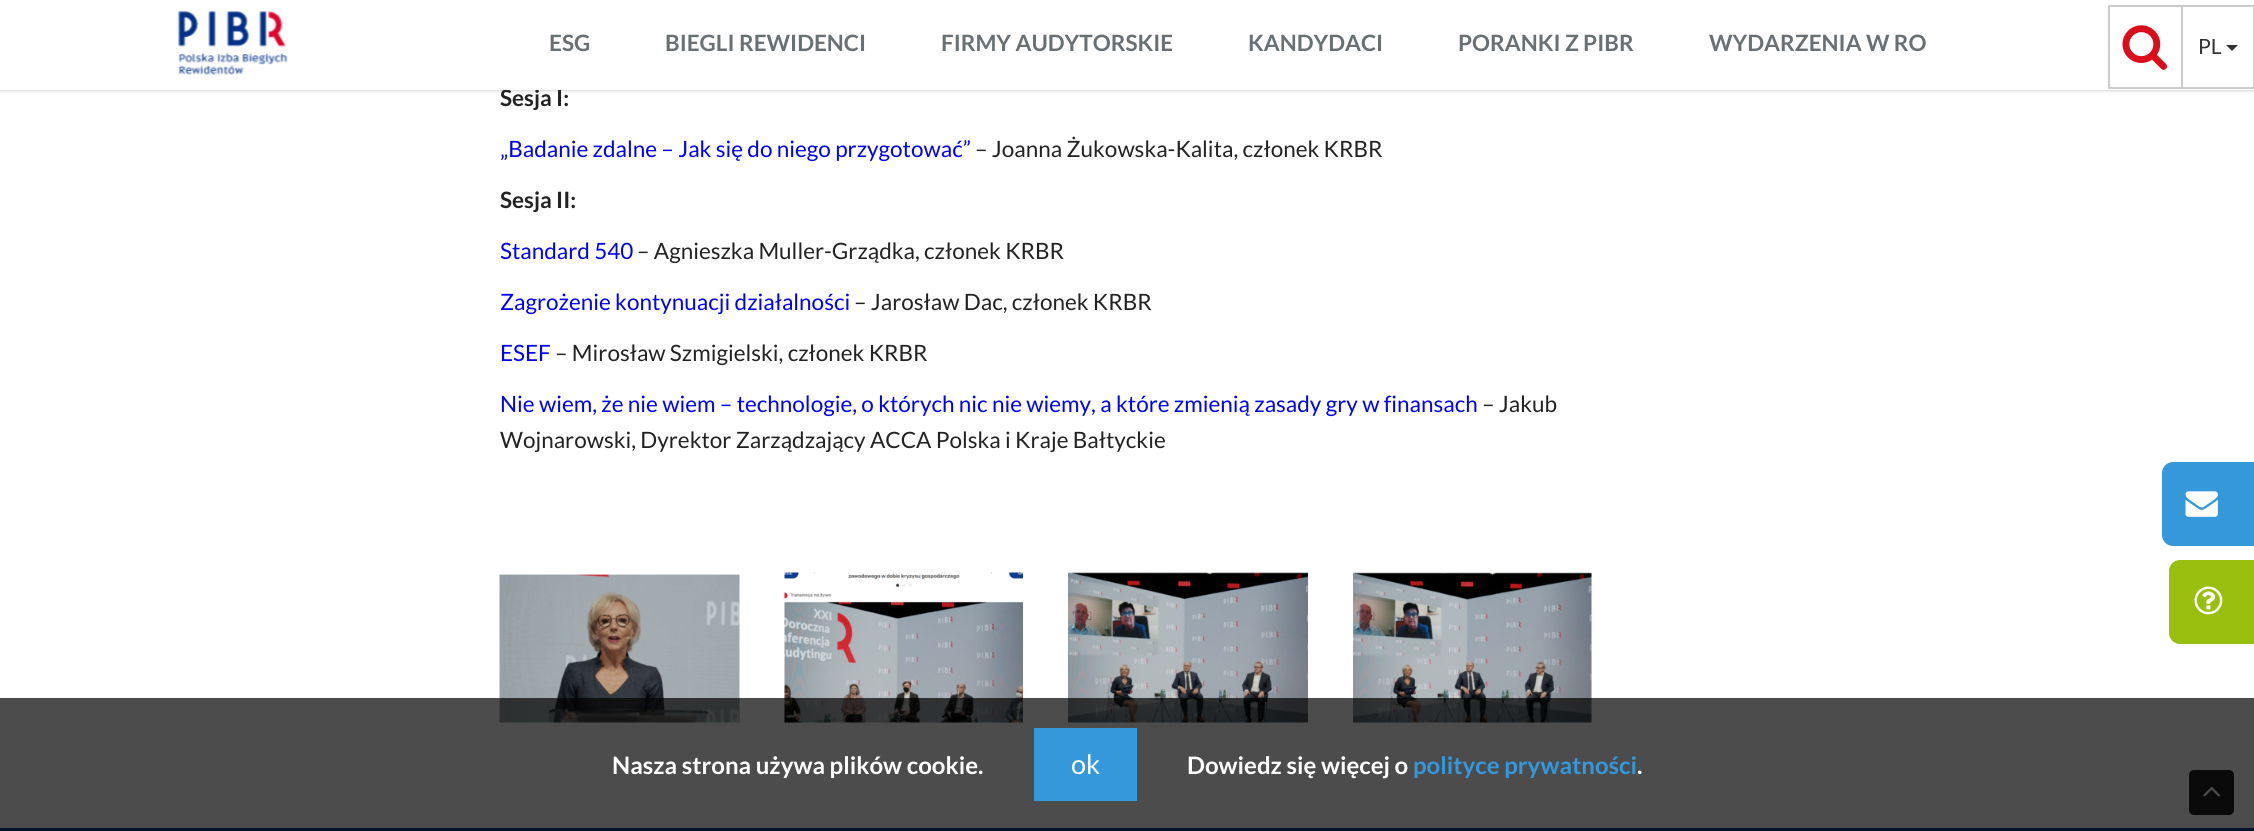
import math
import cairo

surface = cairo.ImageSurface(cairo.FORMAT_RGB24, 2254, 831)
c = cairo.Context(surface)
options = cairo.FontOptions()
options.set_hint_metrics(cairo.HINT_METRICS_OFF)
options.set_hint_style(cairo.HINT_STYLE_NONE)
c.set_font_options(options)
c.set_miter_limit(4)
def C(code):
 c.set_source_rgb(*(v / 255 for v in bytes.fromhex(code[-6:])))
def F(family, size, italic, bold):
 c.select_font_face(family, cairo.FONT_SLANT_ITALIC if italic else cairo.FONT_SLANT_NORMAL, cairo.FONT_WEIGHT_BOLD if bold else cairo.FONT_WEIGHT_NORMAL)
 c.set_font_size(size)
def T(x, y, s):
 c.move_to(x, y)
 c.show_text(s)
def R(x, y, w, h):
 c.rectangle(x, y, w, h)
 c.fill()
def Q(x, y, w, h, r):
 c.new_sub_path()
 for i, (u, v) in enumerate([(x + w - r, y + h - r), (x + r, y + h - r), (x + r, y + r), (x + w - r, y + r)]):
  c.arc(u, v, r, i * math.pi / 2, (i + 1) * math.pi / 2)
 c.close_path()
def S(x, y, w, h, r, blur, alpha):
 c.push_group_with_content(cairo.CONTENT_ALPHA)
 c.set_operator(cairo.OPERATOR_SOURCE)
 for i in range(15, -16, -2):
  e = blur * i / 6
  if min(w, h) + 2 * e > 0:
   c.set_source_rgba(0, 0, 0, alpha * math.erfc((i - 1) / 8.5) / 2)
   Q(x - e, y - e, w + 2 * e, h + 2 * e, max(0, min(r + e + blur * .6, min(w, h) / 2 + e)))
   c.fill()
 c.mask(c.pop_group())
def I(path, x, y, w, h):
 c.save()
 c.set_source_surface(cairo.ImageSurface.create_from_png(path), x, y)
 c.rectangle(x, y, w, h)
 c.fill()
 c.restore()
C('ffffff')
c.paint()
c.save()
c.rectangle(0,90,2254,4)
c.clip()
C('bbbbbb')
S(0,-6,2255,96,0,2,1)
c.restore()
F('Lato',22.5,0,1)
C('222222')
T(500,106,'Sesja I:')
c.set_source_rgba(1,1,1,0.96)
R(504,89,57,1)
I('1.png',177,10,111,65)
C('687074')
T(549,51,'ESG')
T(665,51,'BIEGLI REWIDENCI')
T(941,51,'FIRMY AUDYTORSKIE')
T(1248,51,'KANDYDACI')
T(1458,51,'PORANKI Z PIBR')
T(1709,51,'WYDARZENIA W RO')
c.rectangle(2109,6,73,82)
C('cccccc')
c.stroke()
I('2.png',2122,25,46,45)
R(2183,5,71,2)
R(2253,5,1,84)
R(2183,87,71,2)
F('Lato',21,0,0)
C('333333')
T(2198,54,'PL')
c.new_path()
c.move_to(2226,45)
c.line_to(2238,45)
c.line_to(2232,51)
c.close_path()
c.fill()
F('Lato',22.5,0,0)
C('0000ff')
T(500,157,'„Badanie zdalne – Jak się do niego przygotować”')
C('222222')
T(975,157,'– Joanna Żukowska-Kalita, członek KRBR')
F('Lato',22.5,0,1)
T(500,208,'Sesja II:')
F('Lato',22.5,0,0)
C('0000ff')
T(500,259,'Standard 540')
C('222222')
T(637,259,'– Agnieszka Muller-Grządka, członek KRBR')
C('0000ff')
T(500,310,'Zagrożenie kontynuacji działalności')
C('222222')
T(854,310,'– Jarosław Dac, członek KRBR')
C('0000ff')
T(500,361,'ESEF')
C('222222')
T(555,361,'– Mirosław Szmigielski, członek KRBR')
C('0000ff')
T(500,412,'Nie wiem, że nie wiem – technologie, o których nic nie wiemy, a które zmienią zasady gry w finansach')
C('222222')
T(1482,412,'– Jakub')
T(500,448,'Wojnarowski, Dyrektor Zarządzający ACCA Polska i Kraje Bałtyckie')
I('3.png',499,574,241,149)
I('4.png',784,572,239,151)
I('5.png',1068,572,240,151)
I('6.png',1353,572,239,151)
C('3498db')
c.new_path()
c.move_to(2173,463)
c.line_to(2254,463)
c.line_to(2254,545)
c.line_to(2173,545)
c.curve_to(2167.5,545,2163,540.5,2163,535)
c.line_to(2163,473)
c.curve_to(2163,467.5,2167.5,463,2173,463)
c.close_path()
c.fill_preserve()
c.stroke()
I('7.png',2185,491,33,26)
C('98bf0e')
c.new_path()
c.move_to(2180,561)
c.line_to(2254,561)
c.line_to(2254,643)
c.line_to(2180,643)
c.curve_to(2174.5,643,2170,638.5,2170,633)
c.line_to(2170,571)
c.curve_to(2170,565.5,2174.5,561,2180,561)
c.close_path()
c.fill_preserve()
c.stroke()
I('8.png',2194,586,29,29)
C('004481')
R(0,828,2254,3)
C('222222')
Q(2189,770,45,45,5)
c.fill()
I('9.png',2203,786,17,11)
c.set_source_rgba(0,0,0,0.7)
R(0,698,2254,133)
F('Lato',24,0,1)
C('ffffff')
T(612,774,'Nasza strona używa plików cookie.')
C('3498db')
R(1034,728,103,73)
F('Lato',27,0,0)
C('ffffff')
T(1071,774,'ok')
F('Lato',24,0,1)
T(1187,774,'Dowiedz się więcej o')
C('3498db')
T(1413,774,'polityce prywatności')
C('ffffff')
T(1637,774,'.')
surface.write_to_png('o.png')
